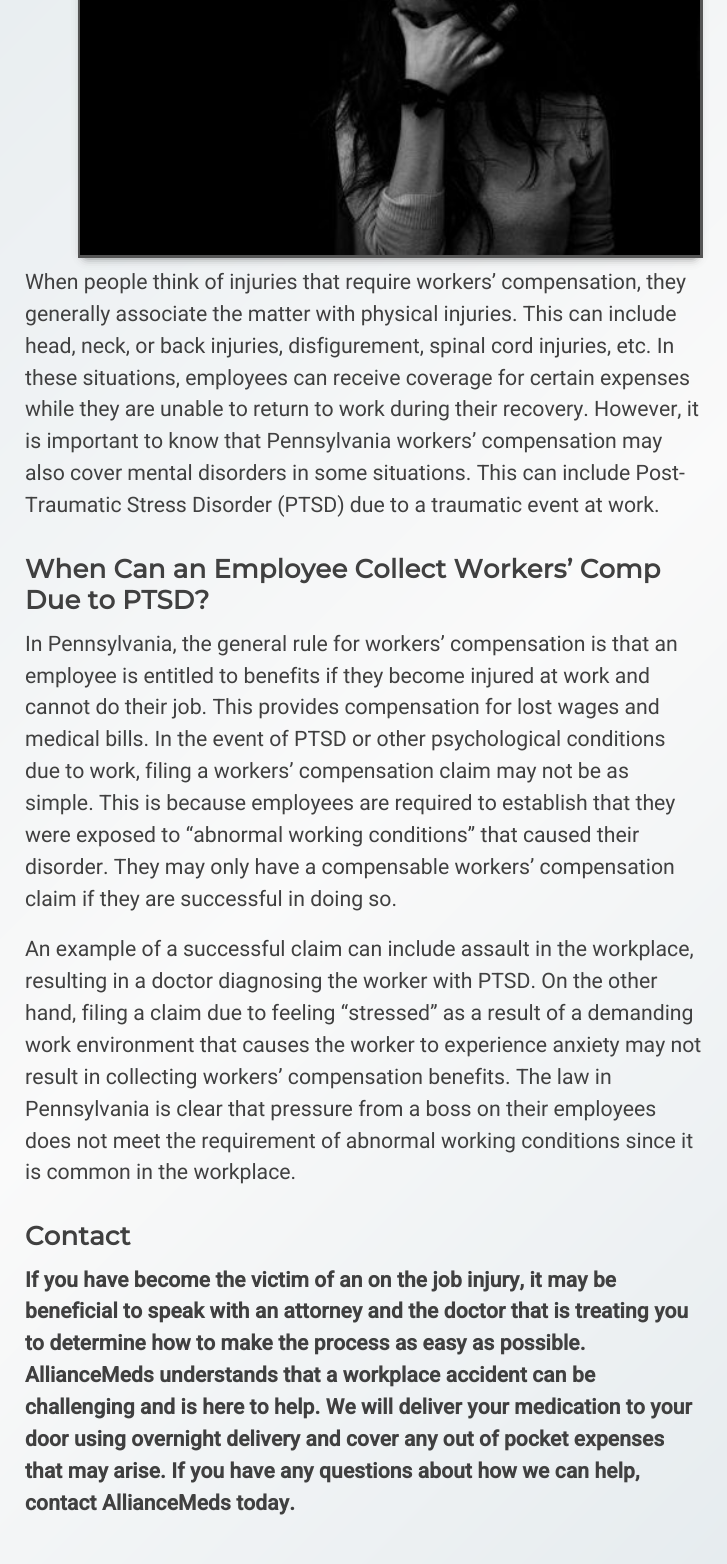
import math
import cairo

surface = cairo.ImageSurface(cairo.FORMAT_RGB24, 727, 1564)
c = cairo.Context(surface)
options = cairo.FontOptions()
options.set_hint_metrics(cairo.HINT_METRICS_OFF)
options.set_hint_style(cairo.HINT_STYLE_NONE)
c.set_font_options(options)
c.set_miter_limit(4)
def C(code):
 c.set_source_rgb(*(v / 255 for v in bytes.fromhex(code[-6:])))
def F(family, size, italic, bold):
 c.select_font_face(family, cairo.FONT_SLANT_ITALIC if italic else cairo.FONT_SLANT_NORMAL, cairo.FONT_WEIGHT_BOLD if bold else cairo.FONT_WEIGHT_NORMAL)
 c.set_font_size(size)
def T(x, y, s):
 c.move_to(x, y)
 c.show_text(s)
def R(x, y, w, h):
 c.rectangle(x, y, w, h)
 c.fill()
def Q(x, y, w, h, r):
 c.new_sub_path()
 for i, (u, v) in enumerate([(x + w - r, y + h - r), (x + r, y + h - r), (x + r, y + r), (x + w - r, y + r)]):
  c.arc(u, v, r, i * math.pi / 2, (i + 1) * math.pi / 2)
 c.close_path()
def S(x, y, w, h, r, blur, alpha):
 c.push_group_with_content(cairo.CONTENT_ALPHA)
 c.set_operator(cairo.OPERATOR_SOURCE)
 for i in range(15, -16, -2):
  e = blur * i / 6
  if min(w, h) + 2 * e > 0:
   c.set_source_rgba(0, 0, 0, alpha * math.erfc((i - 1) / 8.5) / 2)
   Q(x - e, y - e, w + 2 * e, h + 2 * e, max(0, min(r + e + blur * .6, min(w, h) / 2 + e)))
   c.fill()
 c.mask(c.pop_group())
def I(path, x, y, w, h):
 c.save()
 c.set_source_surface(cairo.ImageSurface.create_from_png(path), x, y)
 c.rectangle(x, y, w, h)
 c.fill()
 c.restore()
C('ffffff')
c.paint()
gradient = cairo.LinearGradient(-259,62,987,1308)
gradient.add_color_stop_rgba(0,0.902,0.925,0.937,1)
gradient.add_color_stop_rgba(.55,0.98,0.98,0.98,1)
gradient.add_color_stop_rgba(1,0.902,0.925,0.937,1)
c.set_source(gradient)
R(0,0,727,1564)
C('000000')
S(86,-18,608,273,0,6,.8)
c.rectangle(79.5,-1.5,622,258)
C('555555')
c.set_line_width(3)
c.stroke()
I('1.png',80,0,620,255)
F('Roboto',21.25,0,0)
C('404040')
T(25,289,'When people think of injuries that require workers’ compensation, they')
T(25,321,'generally associate the matter with physical injuries. This can include')
T(25,353,'head, neck, or back injuries, disfigurement, spinal cord injuries, etc. In')
T(25,385,'these situations, employees can receive coverage for certain expenses')
T(25,416,'while they are unable to return to work during their recovery. However, it')
T(25,448,'is important to know that Pennsylvania workers’ compensation may')
T(25,480,'also cover mental disorders in some situations. This can include Post-')
T(25,512,'Traumatic Stress Disorder (PTSD) due to a traumatic event at work.')
F('Montserrat',26.25,0,1)
T(25,578,'When Can an Employee Collect Workers’ Comp')
T(25,609,'Due to PTSD?')
F('Roboto',21.25,0,0)
T(25,651,'In Pennsylvania, the general rule for workers’ compensation is that an')
T(25,683,'employee is entitled to benefits if they become injured at work and')
T(25,714,'cannot do their job. This provides compensation for lost wages and')
T(25,746,'medical bills. In the event of PTSD or other psychological conditions')
T(25,778,'due to work, filing a workers’ compensation claim may not be as')
T(25,810,'simple. This is because employees are required to establish that they')
T(25,842,'were exposed to “abnormal working conditions” that caused their')
T(25,874,'disorder. They may only have a compensable workers’ compensation')
T(25,906,'claim if they are successful in doing so.')
T(25,956,'An example of a successful claim can include assault in the workplace,')
T(25,988,'resulting in a doctor diagnosing the worker with PTSD. On the other')
T(25,1020,'hand, filing a claim due to feeling “stressed” as a result of a demanding')
T(25,1052,'work environment that causes the worker to experience anxiety may not')
T(25,1084,'result in collecting workers’ compensation benefits. The law in')
T(25,1116,'Pennsylvania is clear that pressure from a boss on their employees')
T(25,1148,'does not meet the requirement of abnormal working conditions since it')
T(25,1179,'is common in the workplace.')
F('Montserrat',26.25,0,1)
T(25,1245,'Contact')
F('Roboto',21.25,0,1)
T(25,1287,'If you have become the victim of an on the job injury, it may be')
T(25,1318,'beneficial to speak with an attorney and the doctor that is treating you')
T(25,1350,'to determine how to make the process as easy as possible.')
T(25,1382,'AllianceMeds understands that a workplace accident can be')
T(25,1414,'challenging and is here to help. We will deliver your medication to your')
T(25,1446,'door using overnight delivery and cover any out of pocket expenses')
T(25,1478,'that may arise. If you have any questions about how we can help,')
T(25,1510,'contact AllianceMeds today.')
surface.write_to_png('o.png')
